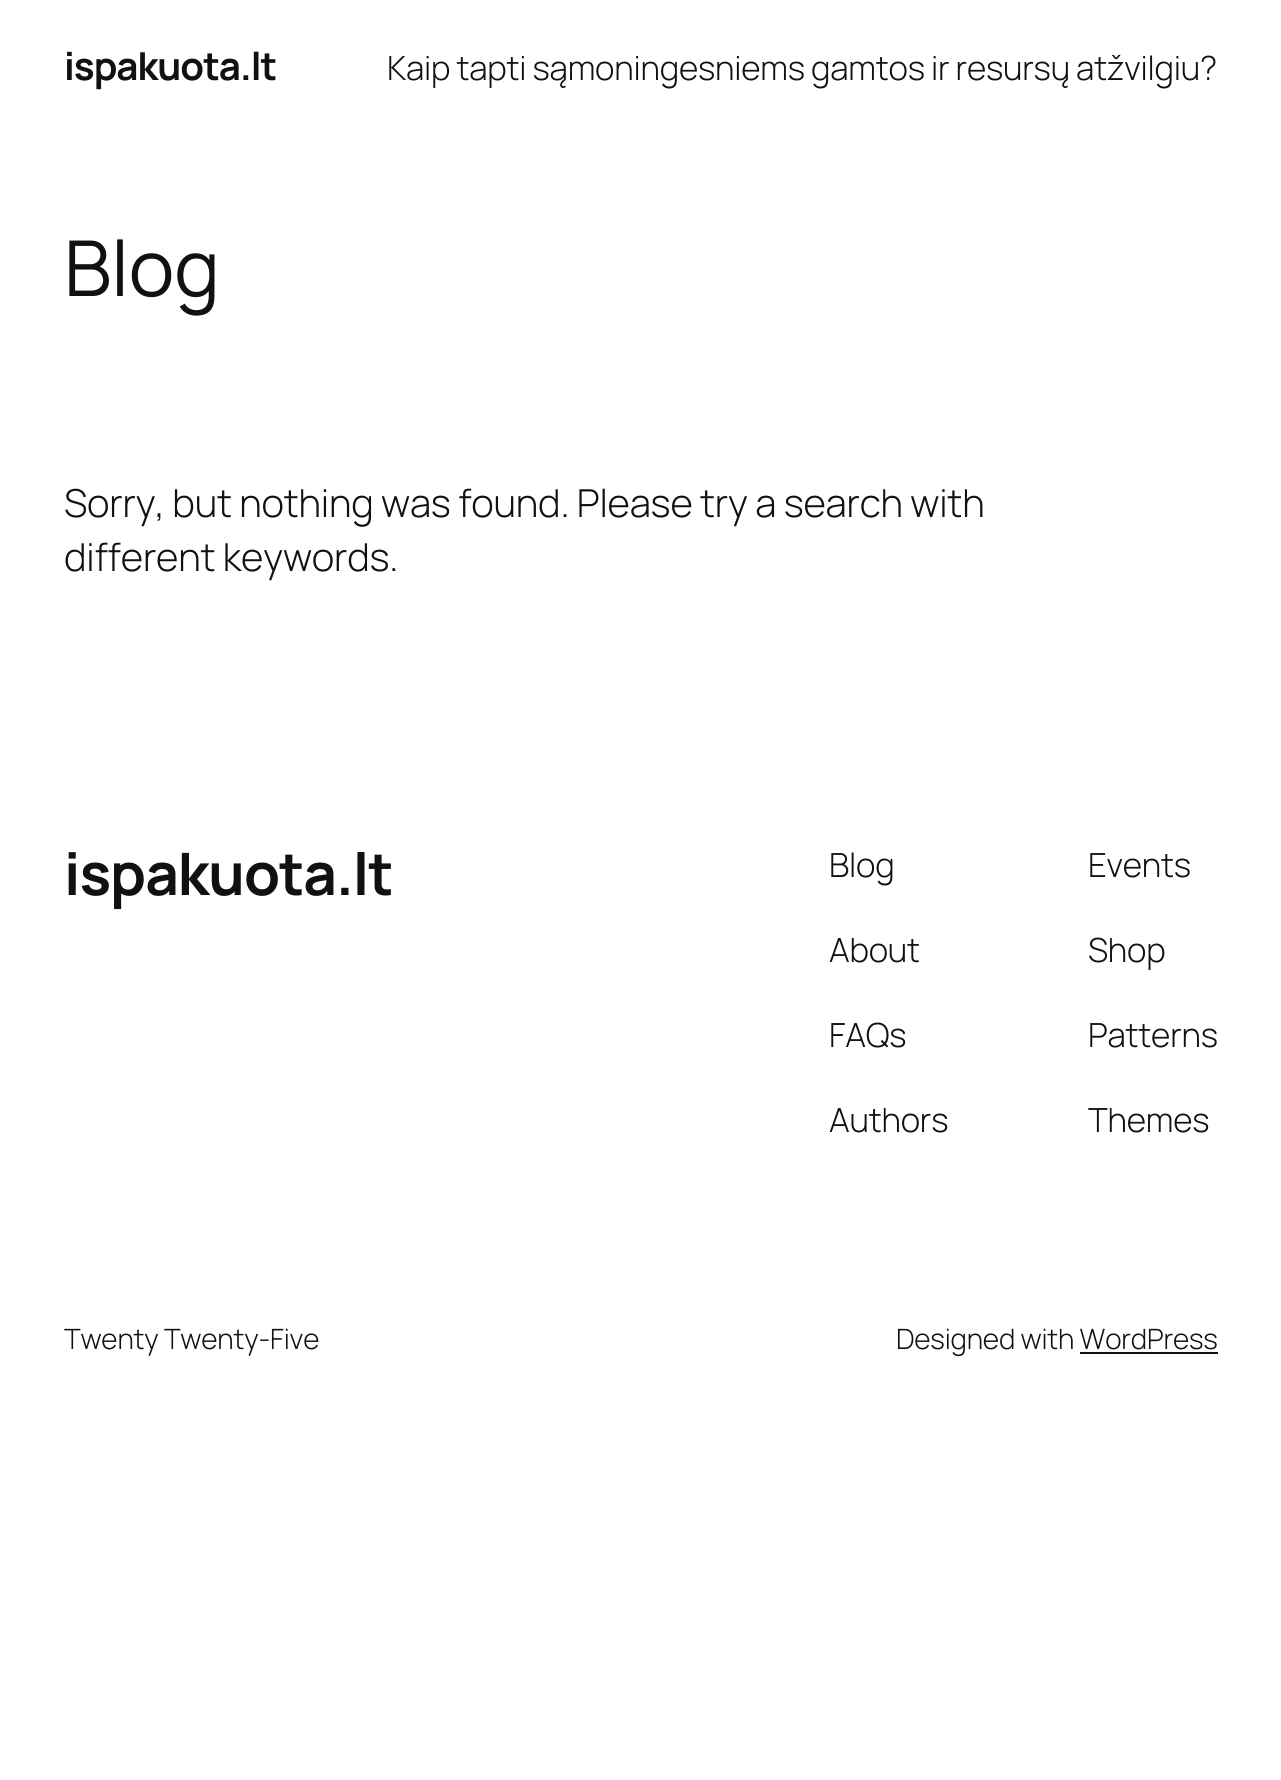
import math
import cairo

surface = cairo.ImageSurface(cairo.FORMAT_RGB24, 1281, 1780)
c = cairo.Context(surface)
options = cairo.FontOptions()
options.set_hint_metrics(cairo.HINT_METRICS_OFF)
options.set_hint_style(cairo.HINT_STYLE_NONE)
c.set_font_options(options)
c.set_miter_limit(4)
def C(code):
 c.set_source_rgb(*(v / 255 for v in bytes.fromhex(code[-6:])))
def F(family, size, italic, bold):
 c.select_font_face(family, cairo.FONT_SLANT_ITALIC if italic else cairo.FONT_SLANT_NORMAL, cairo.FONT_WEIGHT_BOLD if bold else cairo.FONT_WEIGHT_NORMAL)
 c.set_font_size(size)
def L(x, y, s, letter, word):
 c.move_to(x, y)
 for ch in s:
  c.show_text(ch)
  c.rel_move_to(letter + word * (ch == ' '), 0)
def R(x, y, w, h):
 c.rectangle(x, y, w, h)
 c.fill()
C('ffffff')
c.paint()
F('Manrope',38.5,0,1)
C('111111')
L(64,80,'ispakuota.lt',-1,0)
F('Manrope Light',33.25,0,0)
L(387,80,'Kaip tapti sąmoningesniems gamtos ir resursų atžvilgiu?',-.2,-.25)
F('Manrope',77,0,0)
L(64,296,'Blog',-.2,0)
F('Manrope Light',38.5,0,0)
L(64,517,'Sorry, but nothing was found. Please try a search with',-.2,0)
L(64,571,'different keywords.',-.2,0)
F('Manrope',58.5,0,1)
L(64,895,'ispakuota.lt',-1,0)
F('Manrope Light',33.25,0,0)
L(829,877,'Blog',-.2,0)
L(829,962,'About',-.2,0)
L(829,1047,'FAQs',-.2,0)
L(829,1132,'Authors',-.2,0)
L(1088,877,'Events',-.2,0)
L(1088,962,'Shop',-.2,0)
L(1088,1047,'Patterns',-.2,0)
L(1088,1132,'Themes',-.2,0)
F('Manrope Light',28,0,0)
L(64,1349,'Twenty Twenty-Five',-.2,0)
L(896,1349,'Designed with WordPress',-.2,0)
R(1080,1352,138,2)
surface.write_to_png('o.png')
